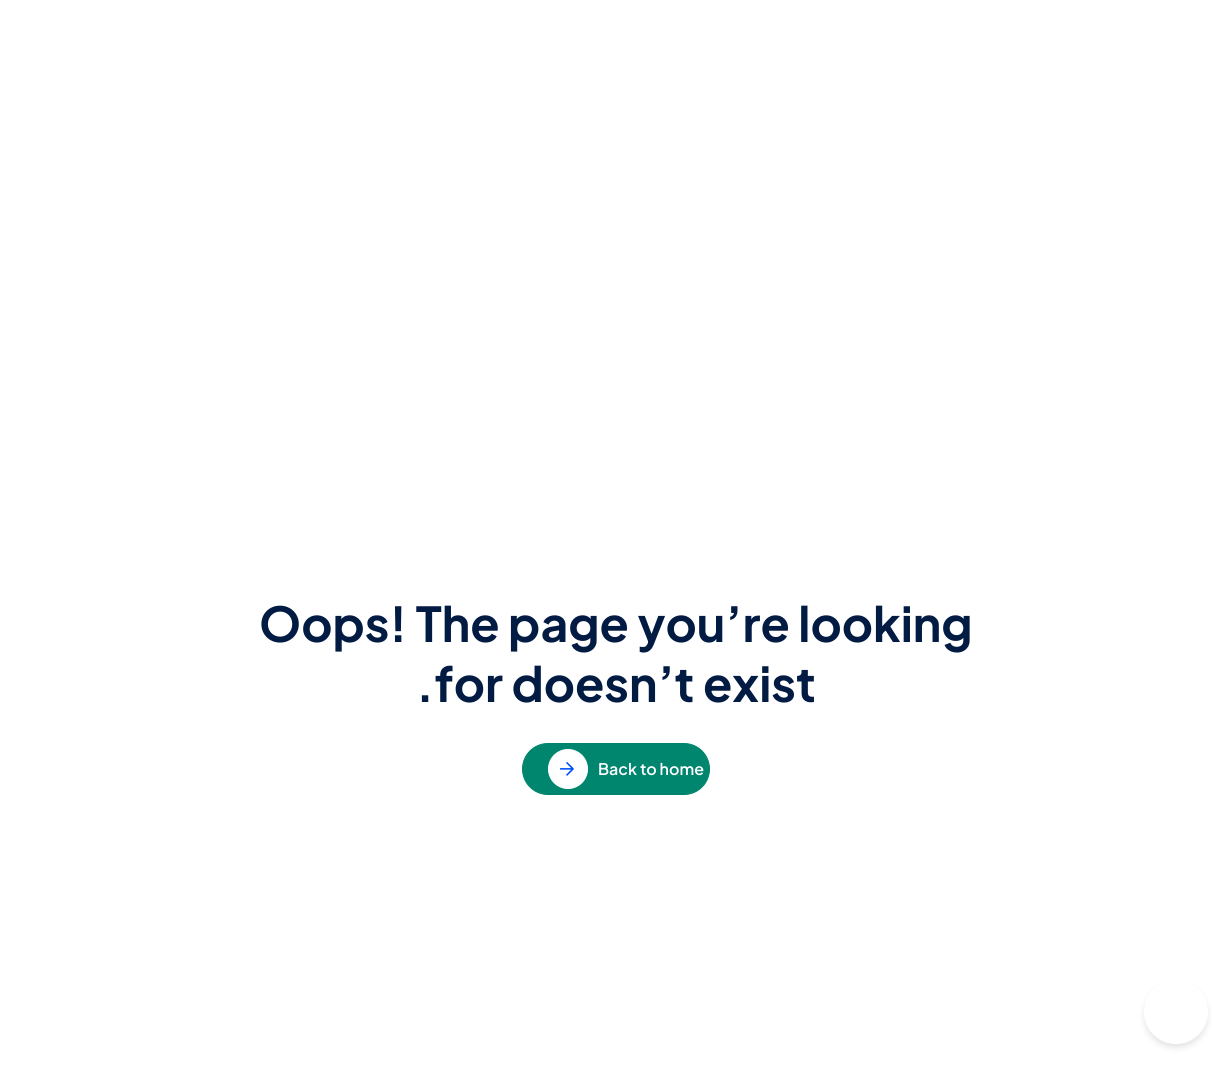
import math
import cairo

surface = cairo.ImageSurface(cairo.FORMAT_RGB24, 1232, 1068)
c = cairo.Context(surface)
options = cairo.FontOptions()
options.set_hint_metrics(cairo.HINT_METRICS_OFF)
options.set_hint_style(cairo.HINT_STYLE_NONE)
c.set_font_options(options)
c.set_miter_limit(4)
def C(code):
 c.set_source_rgb(*(v / 255 for v in bytes.fromhex(code[-6:])))
def F(family, size, italic, bold):
 c.select_font_face(family, cairo.FONT_SLANT_ITALIC if italic else cairo.FONT_SLANT_NORMAL, cairo.FONT_WEIGHT_BOLD if bold else cairo.FONT_WEIGHT_NORMAL)
 c.set_font_size(size)
def T(x, y, s):
 c.move_to(x, y)
 c.show_text(s)
def Q(x, y, w, h, r):
 c.new_sub_path()
 for i, (u, v) in enumerate([(x + w - r, y + h - r), (x + r, y + h - r), (x + r, y + r), (x + w - r, y + r)]):
  c.arc(u, v, r, i * math.pi / 2, (i + 1) * math.pi / 2)
 c.close_path()
def S(x, y, w, h, r, blur, alpha):
 c.push_group_with_content(cairo.CONTENT_ALPHA)
 c.set_operator(cairo.OPERATOR_SOURCE)
 for i in range(15, -16, -2):
  e = blur * i / 6
  if min(w, h) + 2 * e > 0:
   c.set_source_rgba(0, 0, 0, alpha * math.erfc((i - 1) / 8.5) / 2)
   Q(x - e, y - e, w + 2 * e, h + 2 * e, max(0, min(r + e + blur * .6, min(w, h) / 2 + e)))
   c.fill()
 c.mask(c.pop_group())
def I(path, x, y, w, h):
 c.save()
 c.set_source_surface(cairo.ImageSurface.create_from_png(path), x, y)
 c.rectangle(x, y, w, h)
 c.fill()
 c.restore()
C('ffffff')
c.paint()
F('Plus Jakarta Sans',48,0,1)
C('021b42')
T(259,642,'Oops! The page you’re looking')
T(416,702,'.for doesn’t exist')
C('00856f')
Q(522.5,743.5,187,51,25.5)
c.fill_preserve()
c.set_line_width(1)
c.stroke()
C('ffffff')
c.arc(568,769,19.5,0,2 * math.pi)
c.fill_preserve()
c.stroke()
I('1.png',560,762,14,14)
F('Plus Jakarta Sans SemiBold',16,0,0)
T(598,775,'Back to home')
c.save()
c.set_fill_rule(cairo.FILL_RULE_EVEN_ODD)
c.new_path()
c.move_to(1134,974)
c.line_to(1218,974)
c.line_to(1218,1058)
c.line_to(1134,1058)
c.close_path()
c.move_to(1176,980)
c.curve_to(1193.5,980,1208,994.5,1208,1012)
c.curve_to(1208,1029.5,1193.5,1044,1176,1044)
c.curve_to(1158.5,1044,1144,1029.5,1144,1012)
c.curve_to(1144,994.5,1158.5,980,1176,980)
c.close_path()
c.clip()
C('000000')
S(1144,984,64,64,32,3,.1)
c.restore()
surface.write_to_png('o.png')
